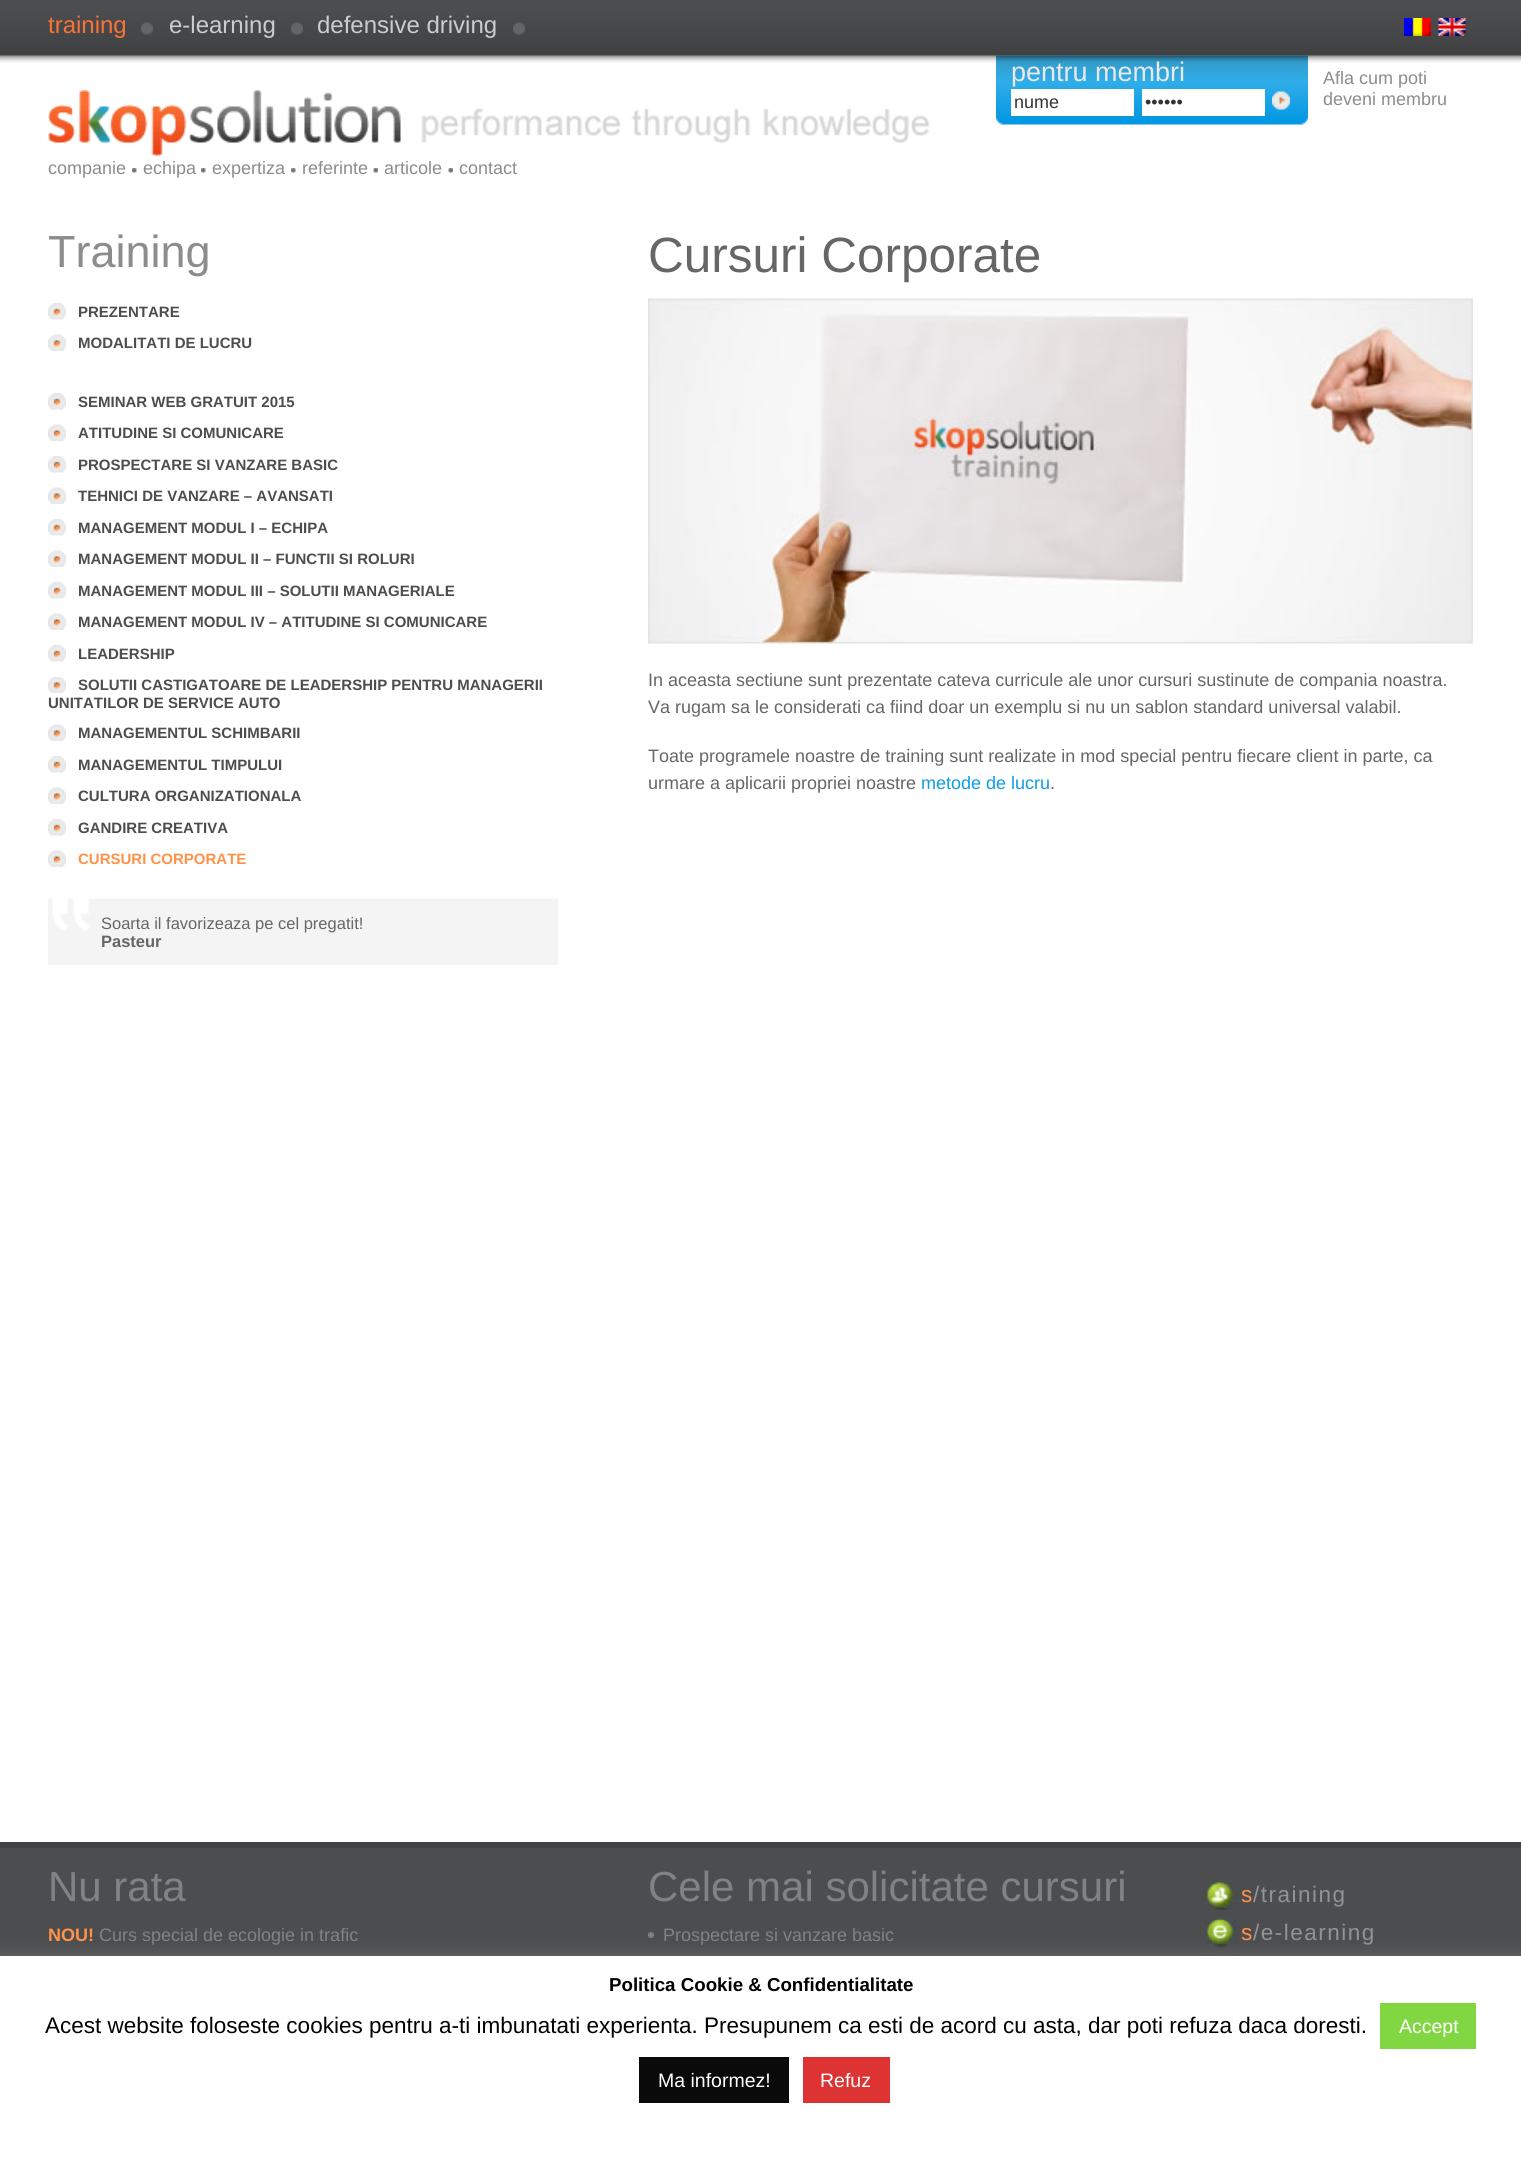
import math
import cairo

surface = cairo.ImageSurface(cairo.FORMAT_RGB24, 1521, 2171)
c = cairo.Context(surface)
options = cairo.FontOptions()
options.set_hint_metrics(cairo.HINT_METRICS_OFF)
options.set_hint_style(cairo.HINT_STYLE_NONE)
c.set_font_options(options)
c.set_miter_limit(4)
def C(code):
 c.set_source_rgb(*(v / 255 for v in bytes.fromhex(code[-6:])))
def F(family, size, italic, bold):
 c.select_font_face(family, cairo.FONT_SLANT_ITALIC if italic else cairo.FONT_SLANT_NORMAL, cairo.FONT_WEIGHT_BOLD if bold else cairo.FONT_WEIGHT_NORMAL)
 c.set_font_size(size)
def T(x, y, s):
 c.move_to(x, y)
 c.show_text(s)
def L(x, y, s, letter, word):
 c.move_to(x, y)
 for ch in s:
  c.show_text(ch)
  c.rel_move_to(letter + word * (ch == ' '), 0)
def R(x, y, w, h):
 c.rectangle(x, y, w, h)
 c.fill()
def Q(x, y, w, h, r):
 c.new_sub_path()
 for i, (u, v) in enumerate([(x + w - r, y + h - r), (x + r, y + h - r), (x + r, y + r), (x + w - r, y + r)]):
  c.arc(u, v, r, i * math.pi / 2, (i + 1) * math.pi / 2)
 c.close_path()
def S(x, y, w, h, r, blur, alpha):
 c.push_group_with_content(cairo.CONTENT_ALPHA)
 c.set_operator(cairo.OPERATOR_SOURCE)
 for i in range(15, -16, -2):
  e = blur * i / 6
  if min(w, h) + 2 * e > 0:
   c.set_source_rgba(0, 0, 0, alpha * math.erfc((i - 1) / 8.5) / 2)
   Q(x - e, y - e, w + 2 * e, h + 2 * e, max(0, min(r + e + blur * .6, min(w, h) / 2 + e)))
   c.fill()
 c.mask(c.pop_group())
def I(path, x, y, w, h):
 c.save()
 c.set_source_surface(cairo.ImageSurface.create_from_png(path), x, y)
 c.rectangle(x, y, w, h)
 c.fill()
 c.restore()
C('ffffff')
c.paint()
I('1.png',0,0,1521,63)
I('2.png',141,22,12,13)
F('Liberation Sans',24,0,0)
C('f97236')
T(48,33,'training')
I('3.png',291,22,12,13)
C('cccccc')
T(169,33,'e-learning')
I('4.png',513,22,12,13)
T(317,33,'defensive driving')
I('5.png',1404,18,27,18)
I('6.png',1438,18,28,18)
I('7.png',48,90,882,66)
I('8.png',996,55,312,70)
F('Liberation Sans',27,0,0)
C('e9e9e9')
T(1011,81,'pentru membri')
C('ffffff')
R(1011,89,123,27)
F('Liberation Sans',18,0,0)
C('333333')
T(1014,108,'nume')
C('ffffff')
R(1142,89,123,27)
C('333333')
T(1145,108,'••••••')
I('9.png',1272,91,18,19)
C('8c8c8c')
T(1323,84,'Afla cum poti')
T(1323,105,'deveni membru')
I('10.png',132,168,5,5)
T(48,174,'companie')
I('10.png',201,168,5,5)
T(143,174,'echipa')
I('11.png',291,168,5,5)
T(212,174,'expertiza')
I('12.png',373,168,5,5)
T(302,174,'referinte')
I('13.png',448,168,5,5)
T(384,174,'articole')
T(459,174,'contact')
F('Liberation Sans',45,0,0)
T(48,267,'Training')
I('14.png',48,303,18,17)
F('Liberation Sans',15,0,1)
C('4d4d4d')
T(78,317,'PREZENTARE')
I('15.png',48,334,18,17)
T(78,348,'MODALITATI DE LUCRU')
I('14.png',48,393,18,17)
T(78,407,'SEMINAR WEB GRATUIT 2015')
I('15.png',48,424,18,17)
T(78,438,'ATITUDINE SI COMUNICARE')
I('14.png',48,456,18,17)
T(78,470,'PROSPECTARE SI VANZARE BASIC')
I('15.png',48,487,18,17)
T(78,501,'TEHNICI DE VANZARE – AVANSATI')
I('14.png',48,519,18,17)
T(78,533,'MANAGEMENT MODUL I – ECHIPA')
I('15.png',48,550,18,17)
T(78,564,'MANAGEMENT MODUL II – FUNCTII SI ROLURI')
I('14.png',48,582,18,17)
T(78,596,'MANAGEMENT MODUL III – SOLUTII MANAGERIALE')
I('15.png',48,613,18,17)
T(78,627,'MANAGEMENT MODUL IV – ATITUDINE SI COMUNICARE')
I('14.png',48,645,18,17)
T(78,659,'LEADERSHIP')
I('16.png',48,677,18,16)
T(78,690,'SOLUTII CASTIGATOARE DE LEADERSHIP PENTRU MANAGERII')
T(48,708,'UNITATILOR DE SERVICE AUTO')
I('15.png',48,724,18,17)
T(78,738,'MANAGEMENTUL SCHIMBARII')
I('14.png',48,756,18,17)
T(78,770,'MANAGEMENTUL TIMPULUI')
I('15.png',48,787,18,17)
T(78,801,'CULTURA ORGANIZATIONALA')
I('14.png',48,819,18,17)
T(78,833,'GANDIRE CREATIVA')
I('15.png',48,850,18,17)
C('ff9148')
T(78,864,'CURSURI CORPORATE')
C('f4f4f4')
R(48,931,510,34)
I('17.png',48,898,510,33)
F('Liberation Sans',16.5,0,0)
C('666666')
T(101,929,'Soarta il favorizeaza pe cel pregatit!')
F('Liberation Sans',16.5,0,1)
T(101,947,'Pasteur')
F('Liberation Sans',49.5,0,0)
T(648,272,'Cursuri Corporate')
I('18.png',648,298,825,346)
F('Liberation Sans',18,0,0)
T(648,686,'In aceasta sectiune sunt prezentate cateva curricule ale unor cursuri sustinute de compania noastra.')
T(648,713,'Va rugam sa le considerati ca fiind doar un exemplu si nu un sablon standard universal valabil.')
T(648,762,'Toate programele noastre de training sunt realizate in mod special pentru fiecare client in parte, ca')
T(648,789,'urmare a aplicarii propriei noastre')
C('0c9de4')
T(921,789,'metode de lucru')
C('666666')
T(1050,789,'.')
I('19.png',0,1842,1521,114)
F('Liberation Sans',42,0,0)
C('818285')
T(48,1901,'Nu rata')
F('Liberation Sans',18,0,1)
C('ff9148')
T(48,1941,'NOU!')
F('Liberation Sans',18,0,0)
C('818285')
T(99,1941,'Curs special de ecologie in trafic')
F('Liberation Sans',42,0,0)
T(648,1901,'Cele mai solicitate cursuri')
I('20.png',648,1932,6,6)
F('Liberation Sans',18,0,0)
T(663,1941,'Prospectare si vanzare basic')
I('21.png',1203,1882,34,28)
F('Liberation Sans',22.5,0,0)
C('ff9148')
L(1241,1902,'s',1.5,0)
C('929396')
L(1253,1902,'/training',1.5,0)
I('22.png',1203,1917,34,30)
C('ff9148')
L(1241,1940,'s',1.5,0)
C('929396')
L(1253,1940,'/e-learning',1.5,0)
I('23.png',1203,1954,34,2)
C('acabab')
S(0,1955,1521,216,0,7.5,.3)
C('ffffff')
R(0,1956,1521,215)
F('Liberation Sans',18.7,0,1)
C('000000')
T(609,1991,'Politica Cookie & Confidentialitate')
F('Liberation Sans',22.5,0,0)
T(45,2033,'Acest website foloseste cookies pentru a-ti imbunatati experienta. Presupunem ca esti de acord cu asta, dar poti refuza daca doresti.')
C('81d742')
R(1380,2003,96,46)
F('Liberation Sans',19.5,0,0)
C('ffffff')
T(1399,2033,'Accept')
C('0a0a0a')
R(639,2057,150,46)
C('ffffff')
T(658,2087,'Ma informez!')
C('dd3333')
R(803,2057,87,46)
C('ffffff')
T(820,2087,'Refuz')
surface.write_to_png('o.png')
